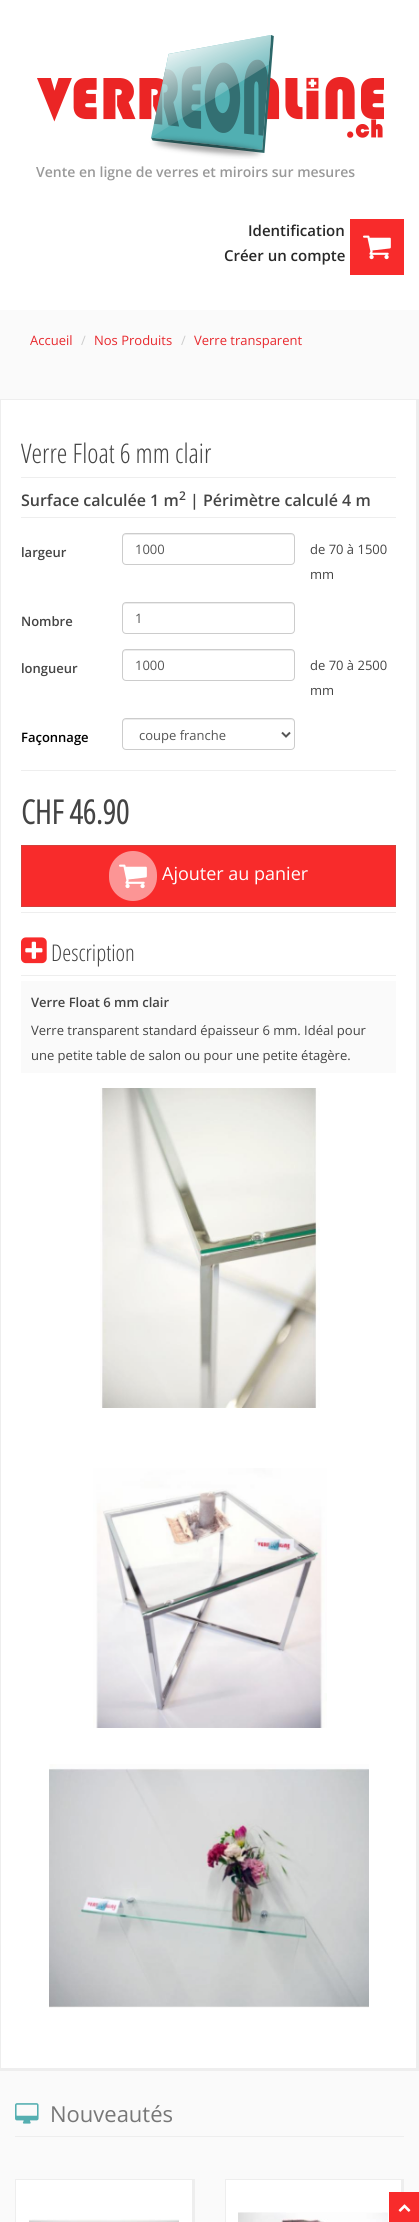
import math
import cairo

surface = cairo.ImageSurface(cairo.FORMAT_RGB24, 419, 2222)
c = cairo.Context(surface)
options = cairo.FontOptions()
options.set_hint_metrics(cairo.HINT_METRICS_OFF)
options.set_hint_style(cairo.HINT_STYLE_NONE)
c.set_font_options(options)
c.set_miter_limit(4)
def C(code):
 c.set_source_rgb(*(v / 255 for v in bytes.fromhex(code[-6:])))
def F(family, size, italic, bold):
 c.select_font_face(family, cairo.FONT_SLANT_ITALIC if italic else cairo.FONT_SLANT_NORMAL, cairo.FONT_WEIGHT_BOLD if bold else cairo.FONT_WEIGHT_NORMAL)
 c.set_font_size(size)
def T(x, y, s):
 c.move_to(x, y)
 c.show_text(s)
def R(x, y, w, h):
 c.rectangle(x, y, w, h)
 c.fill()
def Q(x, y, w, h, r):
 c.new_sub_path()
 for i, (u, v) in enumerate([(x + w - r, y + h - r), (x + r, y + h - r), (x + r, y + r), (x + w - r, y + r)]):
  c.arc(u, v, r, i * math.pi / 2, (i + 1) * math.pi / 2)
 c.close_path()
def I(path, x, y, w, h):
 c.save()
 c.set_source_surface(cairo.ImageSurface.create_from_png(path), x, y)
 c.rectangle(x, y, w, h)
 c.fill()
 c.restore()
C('fafafa')
c.paint()
C('ffffff')
R(0,0,419,310)
I('1.png',37,35,347,124)
F('Open Sans SemiBold',14,0,0)
C('999999')
T(36,177,'Vente en ligne de verres et miroirs sur mesures')
F('Open Sans SemiBold',15,0,0)
C('282828')
T(248,236,'Identification')
C('f82b2b')
R(350,219,54,56)
I('2.png',363,235,28,25)
C('282828')
T(224,261,'Créer un compte')
F('Open Sans',13,0,0)
C('e8292e')
T(30,345,'Accueil')
C('cccccc')
T(81,345,'/')
C('e8292e')
T(94,345,'Nos Produits')
C('cccccc')
T(181,345,'/')
C('e8292e')
T(194,345,'Verre transparent')
C('ffffff')
R(1,400,415,1668)
C('eeeeee')
R(0,399,419,1)
R(416,399,3,1672)
R(0,2068,419,3)
R(0,399,1,1672)
F('Open Sans Condensed Light',27,0,0)
C('444444')
T(21,463,'Verre Float 6 mm clair')
C('eeeeee')
R(21,477,375,1)
R(21,517,375,1)
F('Open Sans SemiBold',16,0,0)
C('444444')
T(21,506,'Surface calculée 1 m')
F('Open Sans SemiBold',12,0,0)
T(179,500,'2')
F('Open Sans SemiBold',16,0,0)
T(190,506,'| Périmètre calculé 4 m')
F('Open Sans SemiBold',13,0,0)
T(21,557,'largeur')
C('ececec')
c.new_path()
c.move_to(126,535)
c.line_to(291,535)
c.curve_to(293,535,294,536,294,538)
c.line_to(294,537)
c.curve_to(294,535,293,534,291,534)
c.line_to(126,534)
c.curve_to(124,534,123,535,123,537)
c.line_to(123,538)
c.curve_to(123,536,124,535,126,535)
c.close_path()
c.fill()
Q(122.5,533.5,172,31,3.5)
C('cccccc')
c.set_line_width(1)
c.stroke()
F('Open Sans',13,0,0)
C('555555')
T(135,554,'1000')
C('444444')
T(310,554,'de 70 à 1500')
T(310,579,'mm')
F('Open Sans SemiBold',13,0,0)
T(21,626,'Nombre')
C('ececec')
c.new_path()
c.move_to(126,604)
c.line_to(291,604)
c.curve_to(293,604,294,605,294,607)
c.line_to(294,606)
c.curve_to(294,604,293,603,291,603)
c.line_to(126,603)
c.curve_to(124,603,123,604,123,606)
c.line_to(123,607)
c.curve_to(123,605,124,604,126,604)
c.close_path()
c.fill()
Q(122.5,602.5,172,31,3.5)
C('cccccc')
c.stroke()
F('Open Sans',13,0,0)
C('555555')
T(135,623,'1')
F('Open Sans SemiBold',13,0,0)
C('444444')
T(21,673,'longueur')
C('ececec')
c.new_path()
c.move_to(126,651)
c.line_to(291,651)
c.curve_to(293,651,294,652,294,654)
c.line_to(294,653)
c.curve_to(294,651,293,650,291,650)
c.line_to(126,650)
c.curve_to(124,650,123,651,123,653)
c.line_to(123,654)
c.curve_to(123,652,124,651,126,651)
c.close_path()
c.fill()
Q(122.5,649.5,172,31,3.5)
C('cccccc')
c.stroke()
F('Open Sans',13,0,0)
C('555555')
T(135,670,'1000')
C('444444')
T(310,670,'de 70 à 2500')
T(310,695,'mm')
F('Open Sans SemiBold',13,0,0)
C('000000')
T(21,742,'Façonnage')
C('ececec')
c.new_path()
c.move_to(126,720)
c.line_to(291,720)
c.curve_to(293,720,294,721,294,723)
c.line_to(294,722)
c.curve_to(294,720,293,719,291,719)
c.line_to(126,719)
c.curve_to(124,719,123,720,123,722)
c.line_to(123,723)
c.curve_to(123,721,124,720,126,720)
c.close_path()
c.fill()
Q(122.5,718.5,172,31,3.5)
C('cccccc')
c.stroke()
c.new_path()
c.move_to(282,732.5)
c.line_to(286,736.5)
c.line_to(290,732.5)
C('555555')
c.set_line_width(2)
c.stroke()
F('Open Sans',13,0,0)
T(139,740,'coupe franche')
C('eeeeee')
R(21,770,375,1)
F('Open Sans Condensed',33,0,1)
C('444444')
T(21,824,'CHF 46.90')
C('f82b2b')
c.rectangle(21.5,845.5,374,61)
c.fill_preserve()
C('d43f3a')
c.set_line_width(1)
c.stroke()
C('fc9595')
Q(109,851,48,50,24)
c.fill()
I('3.png',119,864,28,25)
F('Open Sans',18,0,0)
C('ffffff')
T(162,880,'Ajouter au panier')
C('eeeeee')
R(21,912,375,1)
I('4.png',21,937,26,27)
F('Open Sans Condensed Light',23,0,0)
C('444444')
T(51,961,'Description')
C('eeeeee')
R(21,975,375,1)
C('fafafa')
R(21,981,375,92)
F('Open Sans SemiBold',13,0,0)
C('444444')
T(31,1007,'Verre Float 6 mm clair')
F('Open Sans',13,0,0)
T(31,1035,'Verre transparent standard épaisseur 6 mm. Idéal pour')
T(31,1060,'une petite table de salon ou pour une petite étagère.')
I('5.png',100,1088,220,320)
I('6.png',93,1468,234,260)
I('7.png',49,1764,320,244)
C('eeeeee')
R(15,2136,389,1)
I('8.png',15,2103,24,21)
F('Open Sans',22,0,0)
C('777777')
T(50,2122,'Nouveautés')
C('ffffff')
R(16,2180,176,42)
C('eeeeee')
R(15,2179,180,1)
R(192,2179,3,43)
R(15,2179,1,43)
I('9.png',29,2219,150,3)
C('ffffff')
R(226,2180,175,42)
C('eeeeee')
R(225,2179,179,1)
R(401,2179,3,13)
R(225,2179,1,43)
I('10.png',238,2212,150,10)
C('f82b2b')
R(389,2192,30,30)
I('11.png',398,2204,13,8)
surface.write_to_png('o.png')
